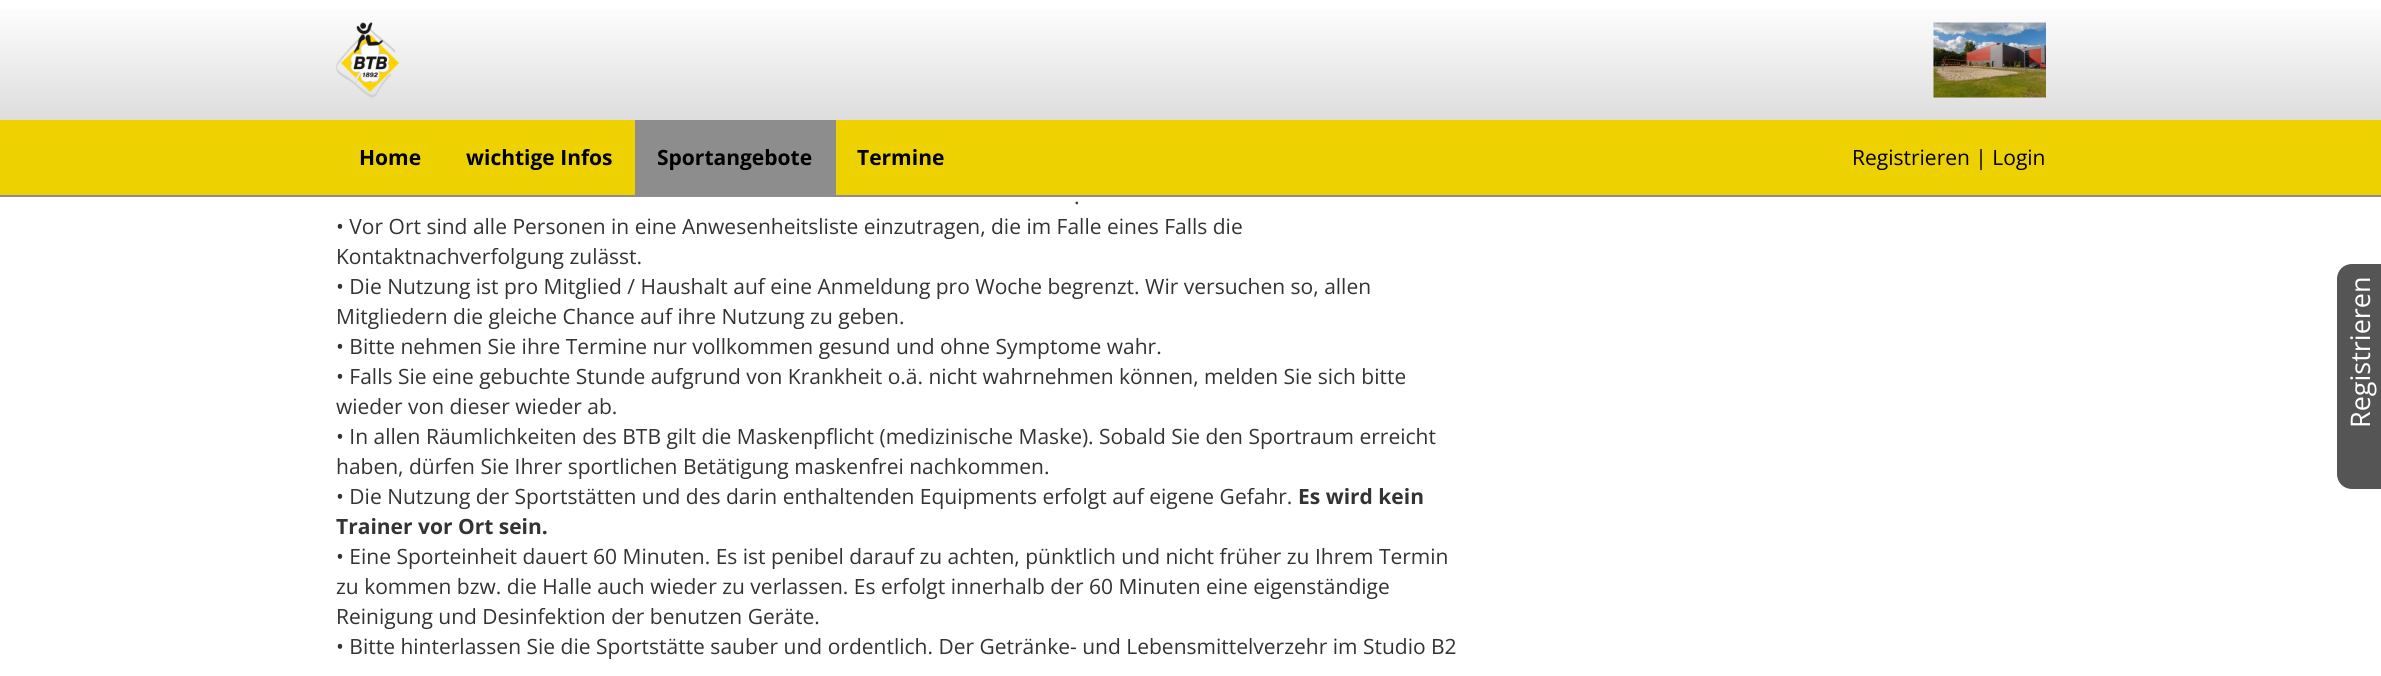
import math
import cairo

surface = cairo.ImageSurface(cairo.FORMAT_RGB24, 2381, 676)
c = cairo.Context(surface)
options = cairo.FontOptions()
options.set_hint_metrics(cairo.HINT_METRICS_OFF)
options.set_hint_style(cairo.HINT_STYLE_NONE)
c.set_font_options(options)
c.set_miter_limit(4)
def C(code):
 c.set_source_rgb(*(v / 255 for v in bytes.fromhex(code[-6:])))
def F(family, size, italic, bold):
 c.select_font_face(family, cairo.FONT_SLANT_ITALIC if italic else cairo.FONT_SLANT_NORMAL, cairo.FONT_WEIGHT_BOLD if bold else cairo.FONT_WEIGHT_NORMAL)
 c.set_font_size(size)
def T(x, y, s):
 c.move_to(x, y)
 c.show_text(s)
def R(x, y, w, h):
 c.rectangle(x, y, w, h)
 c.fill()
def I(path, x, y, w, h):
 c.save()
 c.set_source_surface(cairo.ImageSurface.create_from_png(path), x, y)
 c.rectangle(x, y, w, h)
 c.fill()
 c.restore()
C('ffffff')
c.paint()
C('edd101')
R(0,120,2381,75)
C('8d8d8d')
R(0,195,2381,2)
gradient = cairo.LinearGradient(1191,0,1191,120)
gradient.add_color_stop_rgba(0,1,1,1,1)
gradient.add_color_stop_rgba(1,0.867,0.867,0.867,1)
c.set_source(gradient)
R(0,9,2381,111)
I('1.png',336,22,63,76)
I('2.png',1933,22,113,76)
F('Open Sans',21,0,1)
C('000000')
T(359,165,'Home')
T(466,165,'wichtige Infos')
C('8d8d8d')
R(635,120,201,75)
C('000000')
T(657,165,'Sportangebote')
T(857,165,'Termine')
F('Open Sans',21,0,0)
T(1852,165,'Registrieren | Login')
C('333333')
T(1074,204,'.')
T(336,234,'• Vor Ort sind alle Personen in eine Anwesenheitsliste einzutragen, die im Falle eines Falls die')
T(336,264,'Kontaktnachverfolgung zulässt.')
T(336,294,'• Die Nutzung ist pro Mitglied / Haushalt auf eine Anmeldung pro Woche begrenzt. Wir versuchen so, allen')
T(336,324,'Mitgliedern die gleiche Chance auf ihre Nutzung zu geben.')
T(336,354,'• Bitte nehmen Sie ihre Termine nur vollkommen gesund und ohne Symptome wahr.')
T(336,384,'• Falls Sie eine gebuchte Stunde aufgrund von Krankheit o.ä. nicht wahrnehmen können, melden Sie sich bitte')
T(336,414,'wieder von dieser wieder ab.')
T(336,444,'• In allen Räumlichkeiten des BTB gilt die Maskenpflicht (medizinische Maske). Sobald Sie den Sportraum erreicht')
T(336,474,'haben, dürfen Sie Ihrer sportlichen Betätigung maskenfrei nachkommen.')
T(336,504,'• Die Nutzung der Sportstätten und des darin enthaltenden Equipments erfolgt auf eigene Gefahr.')
F('Open Sans',21,0,1)
T(1298,504,'Es wird kein')
T(336,534,'Trainer vor Ort sein.')
F('Open Sans',21,0,0)
T(336,564,'• Eine Sporteinheit dauert 60 Minuten. Es ist penibel darauf zu achten, pünktlich und nicht früher zu Ihrem Termin')
T(336,594,'zu kommen bzw. die Halle auch wieder zu verlassen. Es erfolgt innerhalb der 60 Minuten eine eigenständige')
T(336,624,'Reinigung und Desinfektion der benutzen Geräte.')
T(336,654,'• Bitte hinterlassen Sie die Sportstätte sauber und ordentlich. Der Getränke- und Lebensmittelverzehr im Studio B2')
C('555555')
c.new_path()
c.move_to(2352,264)
c.line_to(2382,264)
c.line_to(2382,489)
c.line_to(2352,489)
c.curve_to(2343.5,489,2337,482.5,2337,474)
c.line_to(2337,279)
c.curve_to(2337,270.5,2343.5,264,2352,264)
c.close_path()
c.fill()
F('Open Sans',27,0,0)
C('ffffff')
c.save()
c.translate(2370,428)
c.rotate(-90 * math.pi / 180)
T(0,0,'Registrieren')
c.restore()
surface.write_to_png('o.png')
